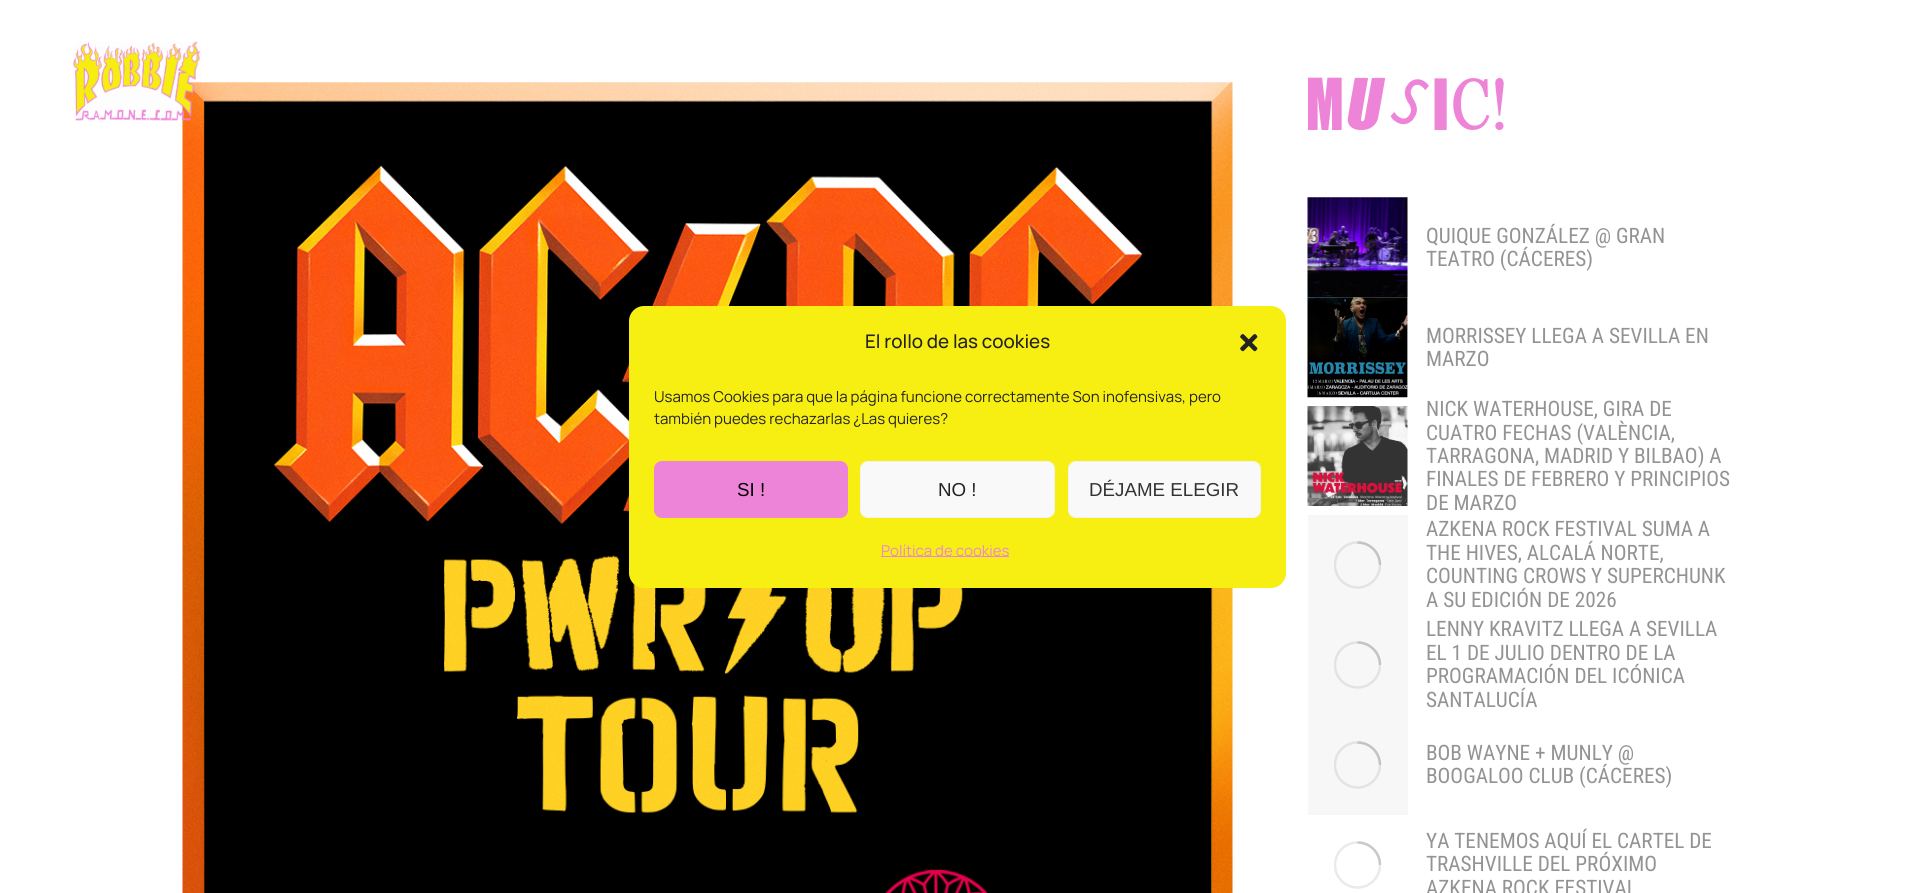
import math
import cairo

surface = cairo.ImageSurface(cairo.FORMAT_RGB24, 1914, 893)
c = cairo.Context(surface)
options = cairo.FontOptions()
options.set_hint_metrics(cairo.HINT_METRICS_OFF)
options.set_hint_style(cairo.HINT_STYLE_NONE)
c.set_font_options(options)
c.set_miter_limit(4)
def C(code):
 c.set_source_rgb(*(v / 255 for v in bytes.fromhex(code[-6:])))
def F(family, size, italic, bold):
 c.select_font_face(family, cairo.FONT_SLANT_ITALIC if italic else cairo.FONT_SLANT_NORMAL, cairo.FONT_WEIGHT_BOLD if bold else cairo.FONT_WEIGHT_NORMAL)
 c.set_font_size(size)
def T(x, y, s):
 c.move_to(x, y)
 c.show_text(s)
def L(x, y, s, letter, word):
 c.move_to(x, y)
 for ch in s:
  c.show_text(ch)
  c.rel_move_to(letter + word * (ch == ' '), 0)
def R(x, y, w, h):
 c.rectangle(x, y, w, h)
 c.fill()
def Q(x, y, w, h, r):
 c.new_sub_path()
 for i, (u, v) in enumerate([(x + w - r, y + h - r), (x + r, y + h - r), (x + r, y + r), (x + w - r, y + r)]):
  c.arc(u, v, r, i * math.pi / 2, (i + 1) * math.pi / 2)
 c.close_path()
def I(path, x, y, w, h):
 c.save()
 c.set_source_surface(cairo.ImageSurface.create_from_png(path), x, y)
 c.rectangle(x, y, w, h)
 c.fill()
 c.restore()
C('ffffff')
c.paint()
I('3.png',182,82,1051,811)
C('f7ef12')
Q(629,306,657,282,15)
c.fill()
F('Manrope Medium',18.75,0,0)
C('222222')
T(865,348,'El rollo de las cookies')
I('1.png',1240,334,18,18)
F('Manrope',15,0,0)
T(654,402,'Usamos Cookies para que la página funcione correctamente Son inofensivas, pero')
T(654,424,'también puedes rechazarlas ¿Las quieres?')
C('ed84d8')
Q(654.5,461.5,193,56,7.5)
c.fill_preserve()
c.set_line_width(1)
c.stroke()
F('Liberation Sans',18.75,0,0)
C('000000')
T(737,496,'SI !')
C('f9f9f9')
Q(860.5,461.5,194,56,7.5)
c.fill_preserve()
C('f2f2f2')
c.stroke()
C('222222')
T(938,496,'NO !')
C('f9f9f9')
Q(1068.5,461.5,192,56,7.5)
c.fill_preserve()
C('f2f2f2')
c.stroke()
C('333333')
T(1089,496,'DÉJAME ELEGIR')
C('ed84d8')
R(881,556,128,1)
F('Manrope',15,0,0)
T(881,556,'Política de cookies')
I('2.png',73,41,128,80)
F('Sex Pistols',57.5,0,0)
L(1308,130,'MUSIC!',5.75,0)
I('4.png',1307,197,101,101)
F('Roboto Condensed',21.25,0,0)
C('939392')
T(1426,243,'QUIQUE GONZÁLEZ @ GRAN')
T(1426,266,'TEATRO (CÁCERES)')
I('5.png',1307,297,101,101)
T(1426,343,'MORRISSEY LLEGA A SEVILLA EN')
T(1426,366,'MARZO')
I('6.png',1307,406,101,100)
T(1426,416,'NICK WATERHOUSE, GIRA DE')
T(1426,440,'CUATRO FECHAS (VALÈNCIA,')
T(1426,463,'TARRAGONA, MADRID Y BILBAO) A')
T(1426,486,'FINALES DE FEBRERO Y PRINCIPIOS')
T(1426,510,'DE MARZO')
C('f7f7f7')
R(1308,515,100,300)
c.save()
c.rectangle(1334,541,47,48)
c.clip()
c.arc(1357.5,565,22.5,0,2 * math.pi)
C('e3e3e3')
c.set_line_width(2.5)
c.stroke()
c.restore()
c.new_path()
c.move_to(1380,565)
c.curve_to(1380,552.5,1370,542.5,1357.5,542.5)
c.set_source_rgba(0.4,0.4,0.4,0.25)
c.set_line_width(2.5)
c.stroke()
C('939392')
T(1426,536,'AZKENA ROCK FESTIVAL SUMA A')
T(1426,560,'THE HIVES, ALCALÁ NORTE,')
T(1426,583,'COUNTING CROWS Y SUPERCHUNK')
T(1426,607,'A SU EDICIÓN DE 2026')
c.save()
c.rectangle(1334,641,47,48)
c.clip()
c.arc(1357.5,665,22.5,0,2 * math.pi)
C('e3e3e3')
c.stroke()
c.restore()
c.new_path()
c.move_to(1380,665)
c.curve_to(1380,652.5,1370,642.5,1357.5,642.5)
c.set_source_rgba(0.4,0.4,0.4,0.25)
c.stroke()
C('939392')
T(1426,636,'LENNY KRAVITZ LLEGA A SEVILLA')
T(1426,660,'EL 1 DE JULIO DENTRO DE LA')
T(1426,683,'PROGRAMACIÓN DEL ICÓNICA')
T(1426,707,'SANTALUCÍA')
c.save()
c.rectangle(1334,741,47,48)
c.clip()
c.arc(1357.5,765,22.5,0,2 * math.pi)
C('e3e3e3')
c.stroke()
c.restore()
c.new_path()
c.move_to(1380,765)
c.curve_to(1380,752.5,1370,742.5,1357.5,742.5)
c.set_source_rgba(0.4,0.4,0.4,0.25)
c.stroke()
C('939392')
T(1426,760,'BOB WAYNE + MUNLY @')
T(1426,783,'BOOGALOO CLUB (CÁCERES)')
c.save()
c.rectangle(1334,841,47,48)
c.clip()
c.arc(1357.5,865,22.5,0,2 * math.pi)
C('eaeaea')
c.stroke()
c.restore()
c.new_path()
c.move_to(1380,865)
c.curve_to(1380,852.5,1370,842.5,1357.5,842.5)
c.set_source_rgba(0.4,0.4,0.4,0.25)
c.stroke()
C('939392')
T(1426,848,'YA TENEMOS AQUÍ EL CARTEL DE')
T(1426,871,'TRASHVILLE DEL PRÓXIMO')
T(1426,895,'AZKENA ROCK FESTIVAL')
surface.write_to_png('o.png')
